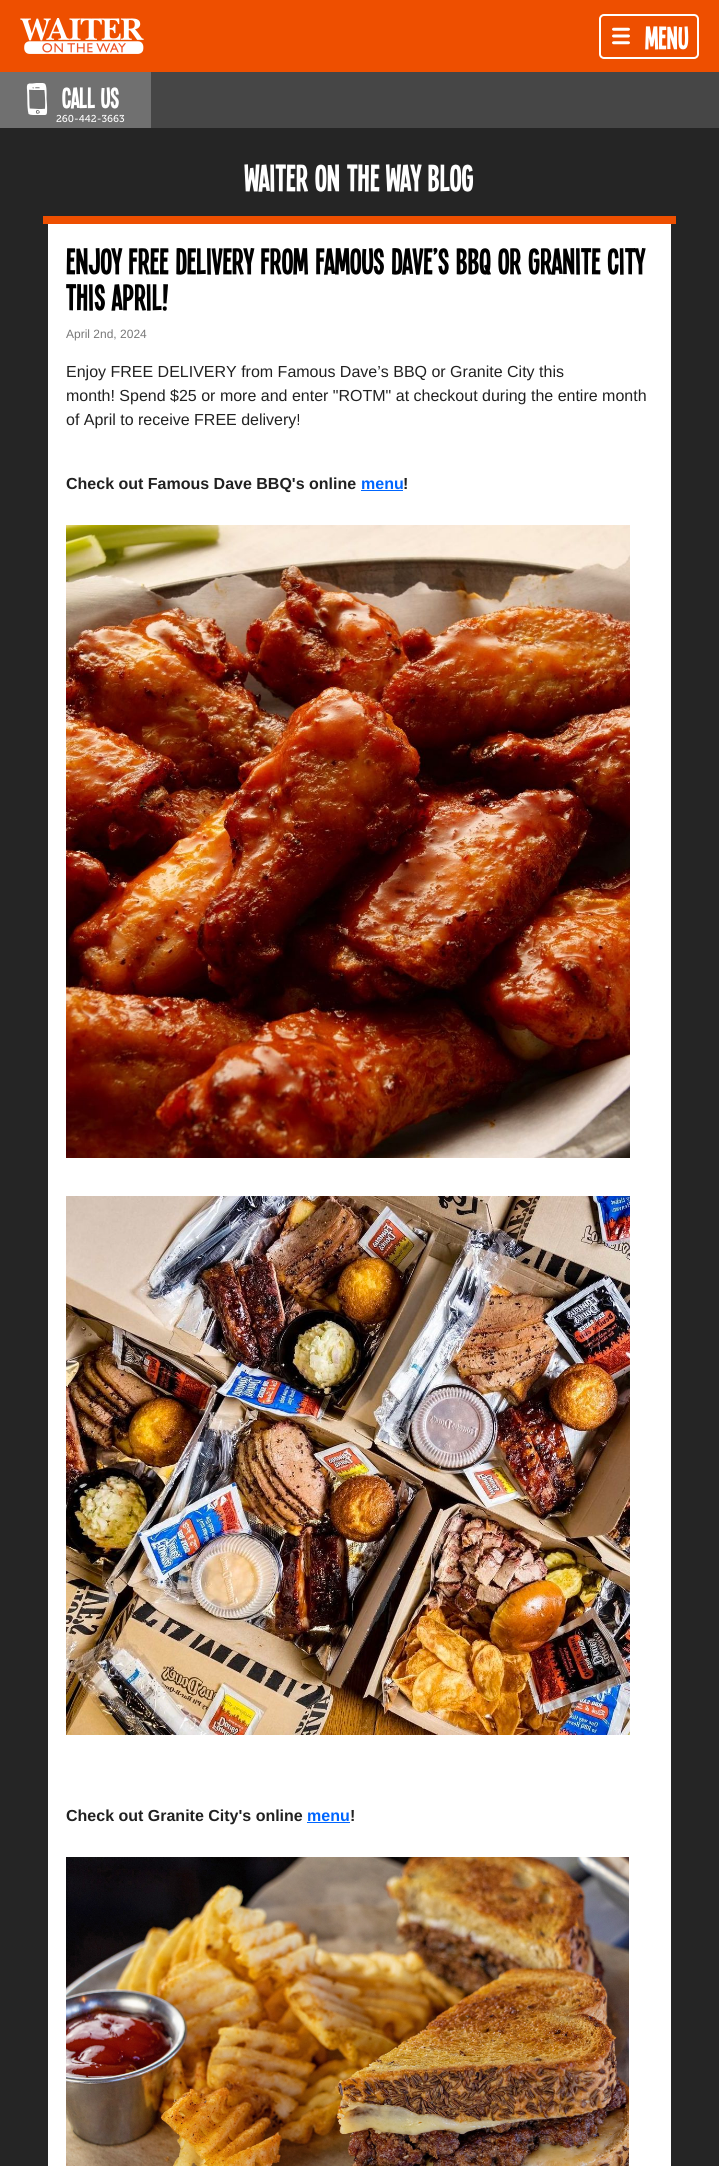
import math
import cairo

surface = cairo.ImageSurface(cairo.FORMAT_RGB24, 719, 2166)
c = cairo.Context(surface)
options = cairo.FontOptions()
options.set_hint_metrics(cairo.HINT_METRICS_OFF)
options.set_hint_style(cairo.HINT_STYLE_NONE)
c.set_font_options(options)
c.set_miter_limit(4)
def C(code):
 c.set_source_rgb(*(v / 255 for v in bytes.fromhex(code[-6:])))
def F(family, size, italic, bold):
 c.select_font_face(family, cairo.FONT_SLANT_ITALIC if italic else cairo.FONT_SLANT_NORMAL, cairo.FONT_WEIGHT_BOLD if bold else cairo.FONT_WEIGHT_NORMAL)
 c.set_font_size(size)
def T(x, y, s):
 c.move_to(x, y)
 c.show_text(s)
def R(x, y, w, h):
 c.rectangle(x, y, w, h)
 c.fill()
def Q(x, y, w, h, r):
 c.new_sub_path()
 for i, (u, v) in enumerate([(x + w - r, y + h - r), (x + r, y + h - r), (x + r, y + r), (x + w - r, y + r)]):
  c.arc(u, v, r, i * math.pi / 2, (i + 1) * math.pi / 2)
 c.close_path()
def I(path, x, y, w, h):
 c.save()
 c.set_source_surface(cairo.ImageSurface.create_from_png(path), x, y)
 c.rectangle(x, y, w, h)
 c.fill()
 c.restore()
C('252525')
c.paint()
C('ee4f00')
R(0,0,719,72)
I('1.png',20,18,124,36)
Q(600,15,98,43,4)
C('ffffff')
c.stroke()
I('2.png',612,27,18,18)
F('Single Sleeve',35,0,0)
T(645,49,'Menu')
C('464646')
R(151,72,568,56)
C('707070')
R(0,72,151,56)
I('3.png',26,83,22,32)
F('Single Sleeve',32,0,0)
C('ffffff')
T(62,108,'Call Us')
F('Museo Slab',10,0,0)
T(56,122,'260-442-3663')
F('Single Sleeve',41,0,0)
T(245,191,'WAITER ON THE WAY BLOG')
C('ee4f00')
R(43,216,633,8)
C('ffffff')
R(48,224,623,1942)
F('Single Sleeve',40,0,0)
C('000000')
T(66,274,'Enjoy FREE DELIVERY from Famous Dave’s BBQ or Granite City')
T(66,310,'this April!')
F('Liberation Sans',12,0,0)
C('777777')
T(66,338,'April 2nd, 2024')
F('Liberation Sans',16,0,0)
C('212121')
T(66,377,'Enjoy FREE DELIVERY from Famous Dave’s BBQ or Granite City this')
T(66,401,'month! Spend $25 or more and enter "ROTM" at checkout during the entire month')
T(66,425,'of April to receive FREE delivery!')
F('Liberation Sans',16,0,1)
T(66,489,'Check out Famous Dave BBQ\'s online')
C('0066ff')
T(361,489,'menu')
R(361,490,42,1)
C('212121')
T(403,489,'!')
I('4.png',66,525,564,633)
I('5.png',66,1196,564,539)
T(66,1821,'Check out Granite City\'s online')
C('0066ff')
T(307,1821,'menu')
R(307,1822,43,1)
C('212121')
T(350,1821,'!')
I('6.png',66,1857,563,309)
surface.write_to_png('o.png')
